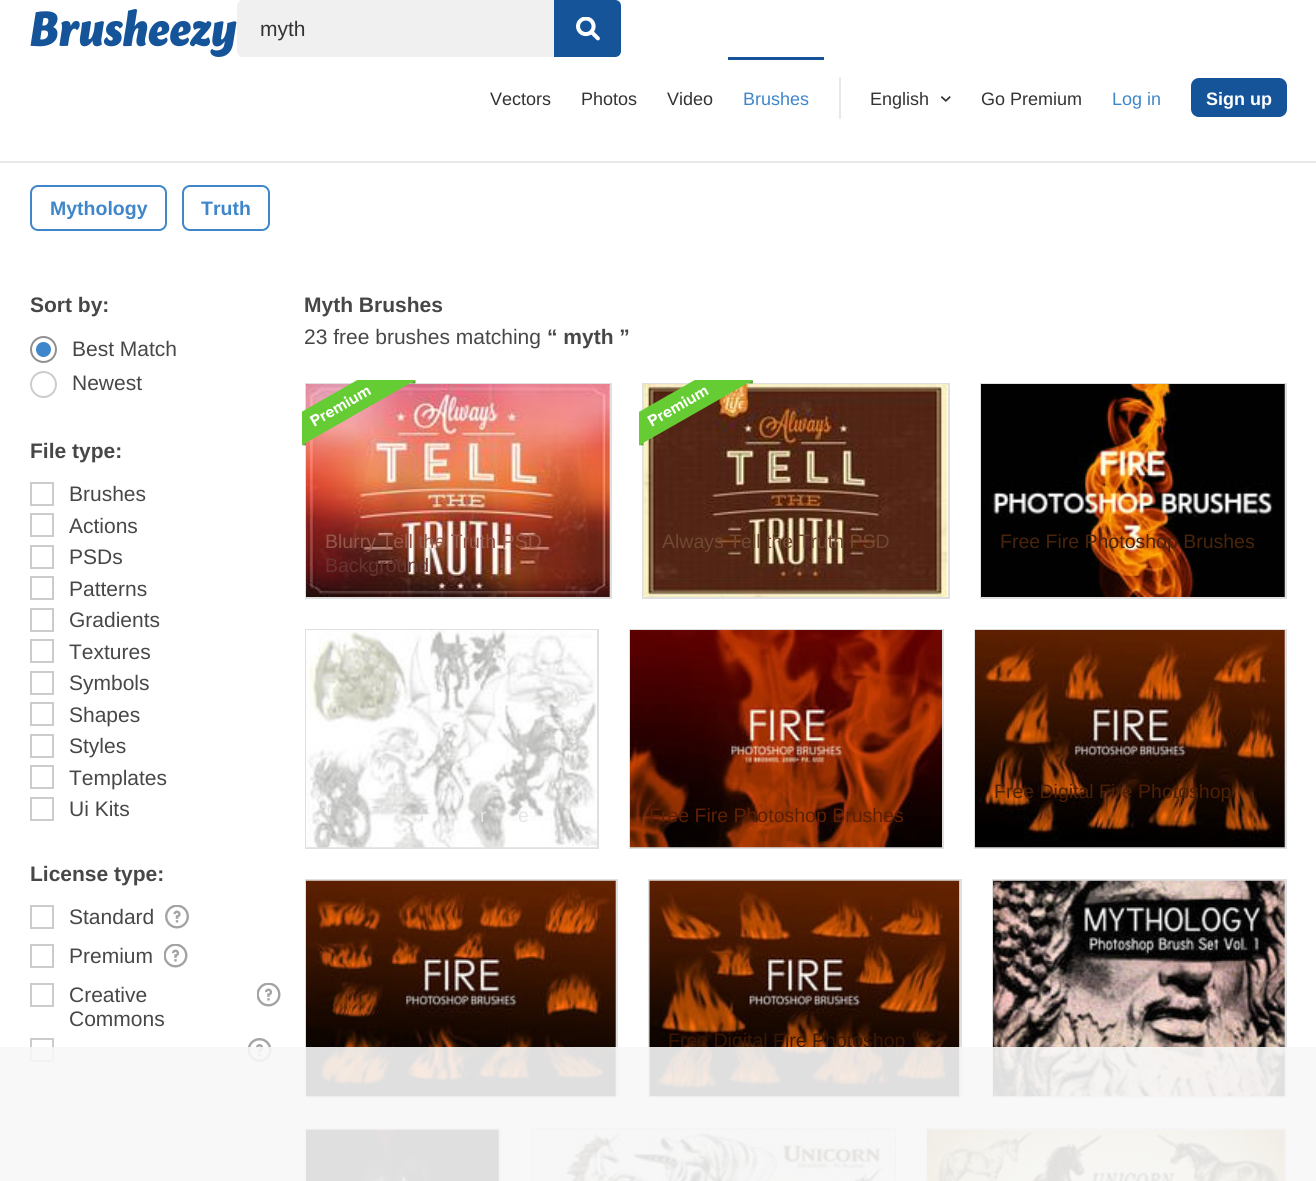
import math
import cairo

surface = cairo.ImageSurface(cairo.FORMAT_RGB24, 1316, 1181)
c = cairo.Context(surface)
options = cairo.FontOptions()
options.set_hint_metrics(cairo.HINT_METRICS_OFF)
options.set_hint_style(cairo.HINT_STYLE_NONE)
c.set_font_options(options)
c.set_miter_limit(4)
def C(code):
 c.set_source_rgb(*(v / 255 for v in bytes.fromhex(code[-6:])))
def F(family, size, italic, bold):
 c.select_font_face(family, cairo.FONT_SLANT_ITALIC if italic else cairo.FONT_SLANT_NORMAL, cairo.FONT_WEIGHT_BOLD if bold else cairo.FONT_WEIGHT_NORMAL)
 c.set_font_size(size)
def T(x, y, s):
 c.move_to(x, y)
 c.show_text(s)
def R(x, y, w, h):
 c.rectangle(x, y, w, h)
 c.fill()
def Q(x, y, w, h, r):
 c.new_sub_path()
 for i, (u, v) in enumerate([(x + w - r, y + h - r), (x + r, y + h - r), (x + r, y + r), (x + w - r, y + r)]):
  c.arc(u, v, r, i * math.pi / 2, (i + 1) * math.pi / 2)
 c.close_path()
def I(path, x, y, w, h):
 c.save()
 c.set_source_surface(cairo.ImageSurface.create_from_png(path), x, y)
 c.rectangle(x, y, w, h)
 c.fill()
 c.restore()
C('ffffff')
c.paint()
C('e8e8e8')
R(0,161,1316,2)
I('1.png',30,9,207,48)
C('f0f0f0')
Q(237,0,384,57,6)
c.fill()
F('Liberation Sans',21,0,0)
C('333333')
T(260,36,'myth')
C('155499')
c.new_path()
c.move_to(554,0)
c.line_to(615,0)
c.curve_to(618.5,0,621,2.5,621,6)
c.line_to(621,51)
c.curve_to(621,54.5,618.5,57,615,57)
c.line_to(554,57)
c.close_path()
c.fill()
I('2.png',576,17,24,24)
F('Liberation Sans',18,0,0)
C('333333')
T(490,105,'Vectors')
T(581,105,'Photos')
T(667,105,'Video')
C('155499')
R(728,57,96,3)
C('3f86ca')
T(743,105,'Brushes')
C('e8e8e8')
R(839,77,2,42)
C('333333')
T(870,105,'English')
I('3.png',941,96,10,6)
T(981,105,'Go Premium')
C('3f86ca')
T(1112,105,'Log in')
C('155499')
Q(1191,78,96,39,8)
c.fill()
F('Liberation Sans',18,0,1)
C('ffffff')
T(1206,105,'Sign up')
Q(31,186,135,44,7)
C('3f86ca')
c.stroke()
F('Liberation Sans',19.5,0,1)
T(50,215,'Mythology')
Q(183,186,86,44,7)
c.stroke()
T(201,215,'Truth')
F('Liberation Sans',21,0,1)
C('474747')
T(30,312,'Sort by:')
c.new_path()
c.arc(43.5,349.5,12.5,0,2 * math.pi)
C('909090')
c.stroke()
C('3f86ca')
c.arc(43.5,349.5,7.5,0,2 * math.pi)
c.fill()
F('Liberation Sans',21,0,0)
C('474747')
T(72,356,'Best Match')
c.new_path()
c.arc(43.5,384.5,12.5,0,2 * math.pi)
C('cccccc')
c.stroke()
C('474747')
T(72,390,'Newest')
F('Liberation Sans',21,0,1)
T(30,458,'File type:')
c.rectangle(31,483,22,22)
C('cccccc')
c.stroke()
F('Liberation Sans',21,0,0)
C('474747')
T(69,501,'Brushes')
c.rectangle(31,514,22,22)
C('cccccc')
c.stroke()
C('474747')
T(69,533,'Actions')
c.rectangle(31,546,22,22)
C('cccccc')
c.stroke()
C('474747')
T(69,564,'PSDs')
c.rectangle(31,577,22,22)
C('cccccc')
c.stroke()
C('474747')
T(69,596,'Patterns')
c.rectangle(31,609,22,22)
C('cccccc')
c.stroke()
C('474747')
T(69,627,'Gradients')
c.rectangle(31,640,22,22)
C('cccccc')
c.stroke()
C('474747')
T(69,659,'Textures')
c.rectangle(31,672,22,22)
C('cccccc')
c.stroke()
C('474747')
T(69,690,'Symbols')
c.rectangle(31,703,22,22)
C('cccccc')
c.stroke()
C('474747')
T(69,722,'Shapes')
c.rectangle(31,735,22,22)
C('cccccc')
c.stroke()
C('474747')
T(69,753,'Styles')
c.rectangle(31,766,22,22)
C('cccccc')
c.stroke()
C('474747')
T(69,785,'Templates')
c.rectangle(31,798,22,22)
C('cccccc')
c.stroke()
C('474747')
T(69,816,'Ui Kits')
F('Liberation Sans',21,0,1)
T(30,881,'License type:')
c.rectangle(31,906,22,22)
C('cccccc')
c.stroke()
F('Liberation Sans',21,0,0)
C('474747')
T(69,924,'Standard')
I('4.png',165,905,24,24)
c.rectangle(31,945,22,22)
C('cccccc')
c.stroke()
C('474747')
T(69,963,'Premium')
I('5.png',164,944,24,24)
c.rectangle(31,984,22,22)
C('cccccc')
c.stroke()
C('474747')
T(69,1002,'Creative')
T(69,1026,'Commons')
I('5.png',257,983,24,24)
c.rectangle(31,1039,22,22)
C('cccccc')
c.stroke()
I('6.png',248,1038,24,24)
F('Liberation Sans',21,0,1)
C('474747')
T(304,312,'Myth Brushes')
F('Liberation Sans',21,0,0)
T(304,344,'23 free brushes matching')
F('Liberation Sans',21,0,1)
T(547,344,'“ myth ”')
c.rectangle(306,384,305,214)
C('dfdfdf')
c.stroke()
I('8.png',306,384,304,213)
I('7.png',302,380,114,66)
F('Liberation Sans',19.5,0,0)
C('965749')
T(325,548,'Blurry Tell the Truth PSD')
C('67342f')
T(325,572,'Background')
c.rectangle(643,384,306,214)
C('dfdfdf')
c.stroke()
I('10.png',643,384,305,213)
I('9.png',639,380,114,66)
C('704932')
T(662,548,'Always Tell the Truth PSD')
c.rectangle(981,384,305,214)
C('dfdfdf')
c.stroke()
I('11.png',981,384,304,213)
C('49240b')
T(1000,548,'Free Fire Photoshop Brushes')
c.rectangle(975,630,311,218)
C('dfdfdf')
c.stroke()
I('12.png',975,630,310,218)
C('4d1f04')
T(994,798,'Free Digital Fire Photoshop')
c.rectangle(306,630,292,218)
C('dfdfdf')
c.stroke()
I('13.png',306,630,291,218)
C('e6e6e5')
T(480,822,'r')
T(518,822,'e')
c.rectangle(630,630,313,218)
C('dfdfdf')
c.stroke()
I('14.png',630,630,312,218)
C('5f1f02')
T(649,822,'Free Fire Photoshop Brushes')
c.rectangle(306,880,311,217)
C('dfdfdf')
c.stroke()
I('15.png',306,880,310,217)
c.rectangle(649,880,312,217)
c.stroke()
I('16.png',649,880,311,217)
C('3a1703')
T(668,1047,'Free Digital Fire Photoshop')
c.rectangle(993,880,293,217)
C('dfdfdf')
c.stroke()
I('17.png',993,880,292,217)
c.rectangle(306,1129,194,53)
c.stroke()
I('18.png',306,1129,193,52)
c.rectangle(532,1129,363,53)
c.stroke()
I('19.png',532,1129,362,52)
c.rectangle(927,1129,359,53)
c.stroke()
I('20.png',927,1129,358,52)
c.set_source_rgba(0.969,0.969,0.969,0.9)
R(0,1047,1316,134)
surface.write_to_png('o.png')
